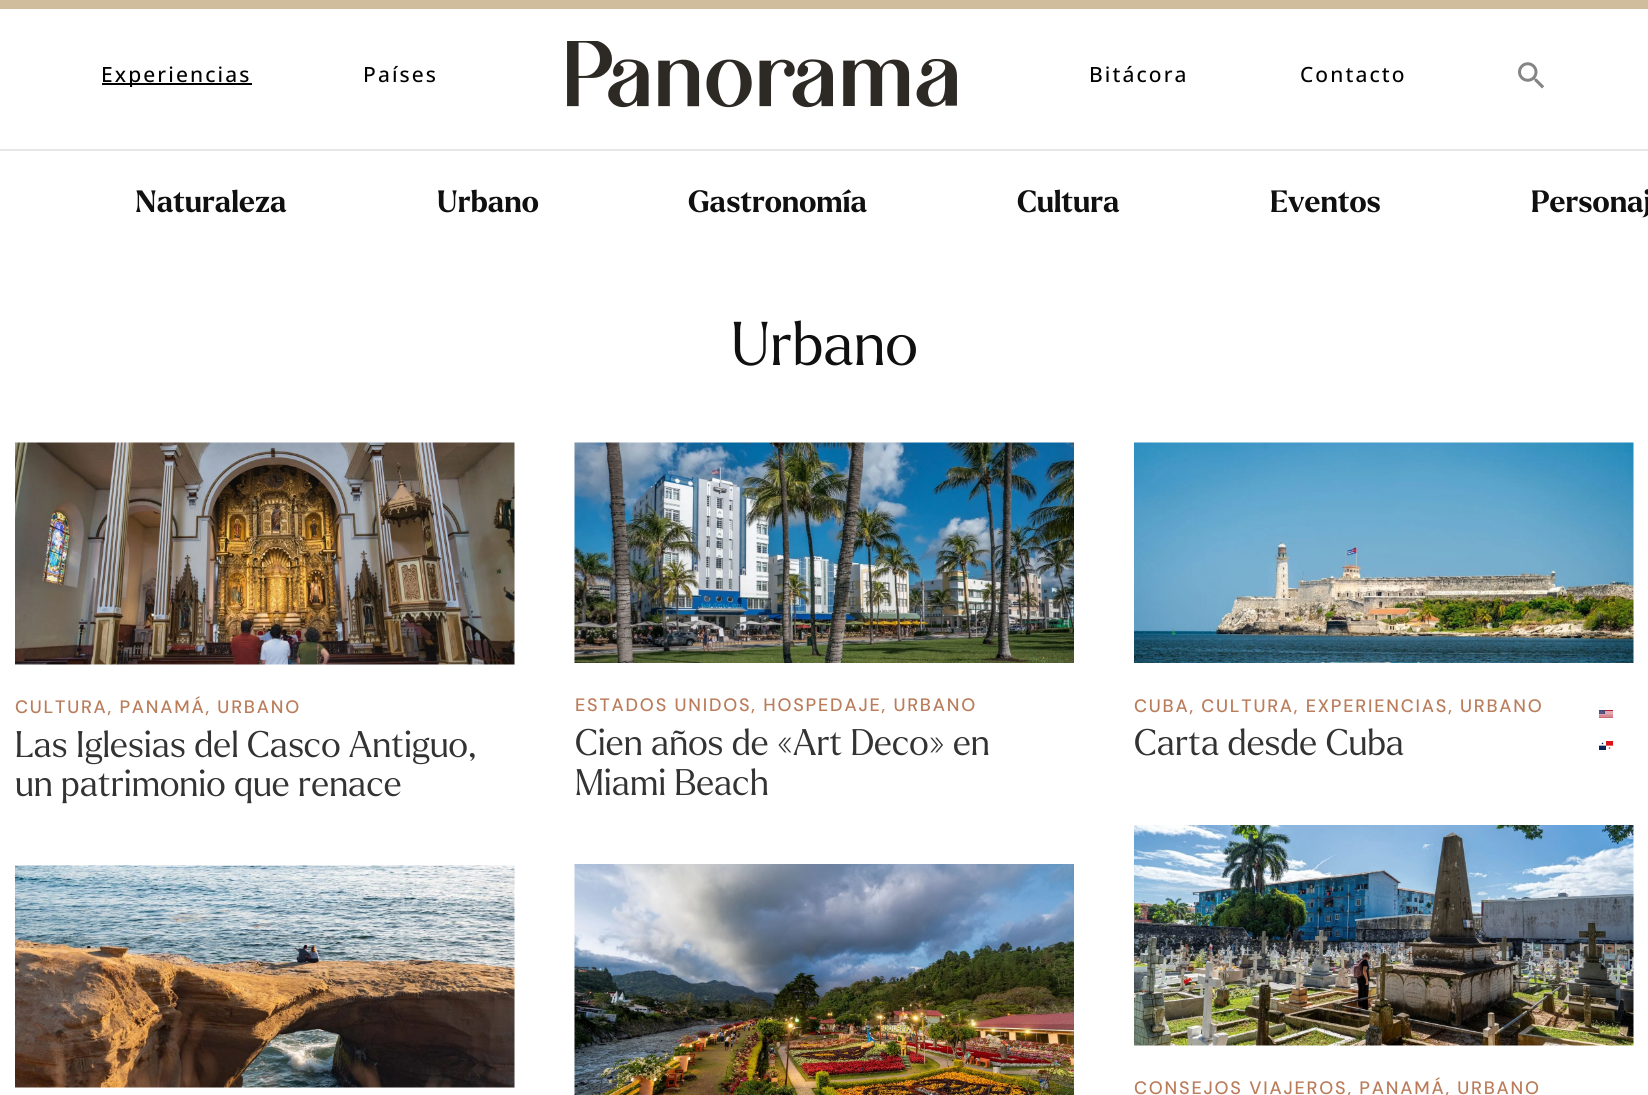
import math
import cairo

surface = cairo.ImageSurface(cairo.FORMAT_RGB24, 1648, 1095)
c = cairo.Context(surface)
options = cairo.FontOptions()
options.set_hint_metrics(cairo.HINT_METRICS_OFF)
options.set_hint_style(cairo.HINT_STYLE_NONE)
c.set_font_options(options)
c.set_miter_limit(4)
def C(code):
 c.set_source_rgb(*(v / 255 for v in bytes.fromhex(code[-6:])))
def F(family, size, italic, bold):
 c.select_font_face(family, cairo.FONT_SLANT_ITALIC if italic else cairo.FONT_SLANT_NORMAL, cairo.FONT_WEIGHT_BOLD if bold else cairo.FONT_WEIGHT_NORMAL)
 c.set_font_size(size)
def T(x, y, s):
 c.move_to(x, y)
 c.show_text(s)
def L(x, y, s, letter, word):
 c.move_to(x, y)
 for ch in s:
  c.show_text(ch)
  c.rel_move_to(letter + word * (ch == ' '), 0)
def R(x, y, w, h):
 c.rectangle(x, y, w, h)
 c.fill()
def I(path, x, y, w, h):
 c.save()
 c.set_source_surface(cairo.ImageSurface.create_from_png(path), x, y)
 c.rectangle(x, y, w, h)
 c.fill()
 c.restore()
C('ffffff')
c.paint()
C('e6e6e6')
R(0,149,1648,2)
c.save()
c.rectangle(0,0,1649,9)
c.clip()
c.new_path()
c.move_to(0,0)
c.line_to(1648.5,9)
C('d0bd9d')
c.set_line_width(18)
c.stroke()
c.restore()
F('Open Sans Medium',21,0,0)
C('000000')
L(101,82,'Experiencias',2.1,0)
R(102,83,150,2)
L(363,82,'Países',2.1,0)
I('1.png',567,41,390,67)
L(1089,82,'Bitácora',2.1,0)
L(1300,82,'Contacto',2.1,0)
I('2.png',1518,62,27,27)
F('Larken',30,0,1)
C('101010')
T(135,212,'Naturaleza')
T(437,212,'Urbano')
T(688,212,'Gastronomía')
T(1017,212,'Cultura')
T(1270,212,'Eventos')
T(1531,212,'Personaj')
F('Larken Light',60,0,0)
T(731,365,'Urbano')
I('3.png',15,442,500,223)
F('DM Sans Medium',18,0,0)
C('ba7d5c')
L(15,713,'CULTURA, PANAMÁ, URBANO',1.8,0)
F('Larken Light',36,0,0)
C('333333')
T(15,757,'Las Iglesias del Casco Antiguo,')
T(15,796,'un patrimonio que renace')
I('4.png',574,442,500,221)
F('DM Sans Medium',18,0,0)
C('ba7d5c')
L(575,711,'ESTADOS UNIDOS, HOSPEDAJE, URBANO',1.8,0)
F('Larken Light',36,0,0)
C('333333')
T(575,755,'Cien años de «Art Deco» en')
T(575,795,'Miami Beach')
I('5.png',1134,442,500,221)
F('DM Sans Medium',18,0,0)
C('ba7d5c')
L(1134,712,'CUBA, CULTURA, EXPERIENCIAS, URBANO',1.8,0)
F('Larken Light',36,0,0)
C('333333')
T(1134,755,'Carta desde Cuba')
I('6.png',15,865,500,223)
I('7.png',574,864,500,231)
I('8.png',1134,825,500,221)
F('DM Sans Medium',18,0,0)
C('ba7d5c')
L(1134,1094,'CONSEJOS VIAJEROS, PANAMÁ, URBANO',1.8,0)
I('9.png',1599,710,14,8)
I('10.png',1599,741,15,9)
surface.write_to_png('o.png')
